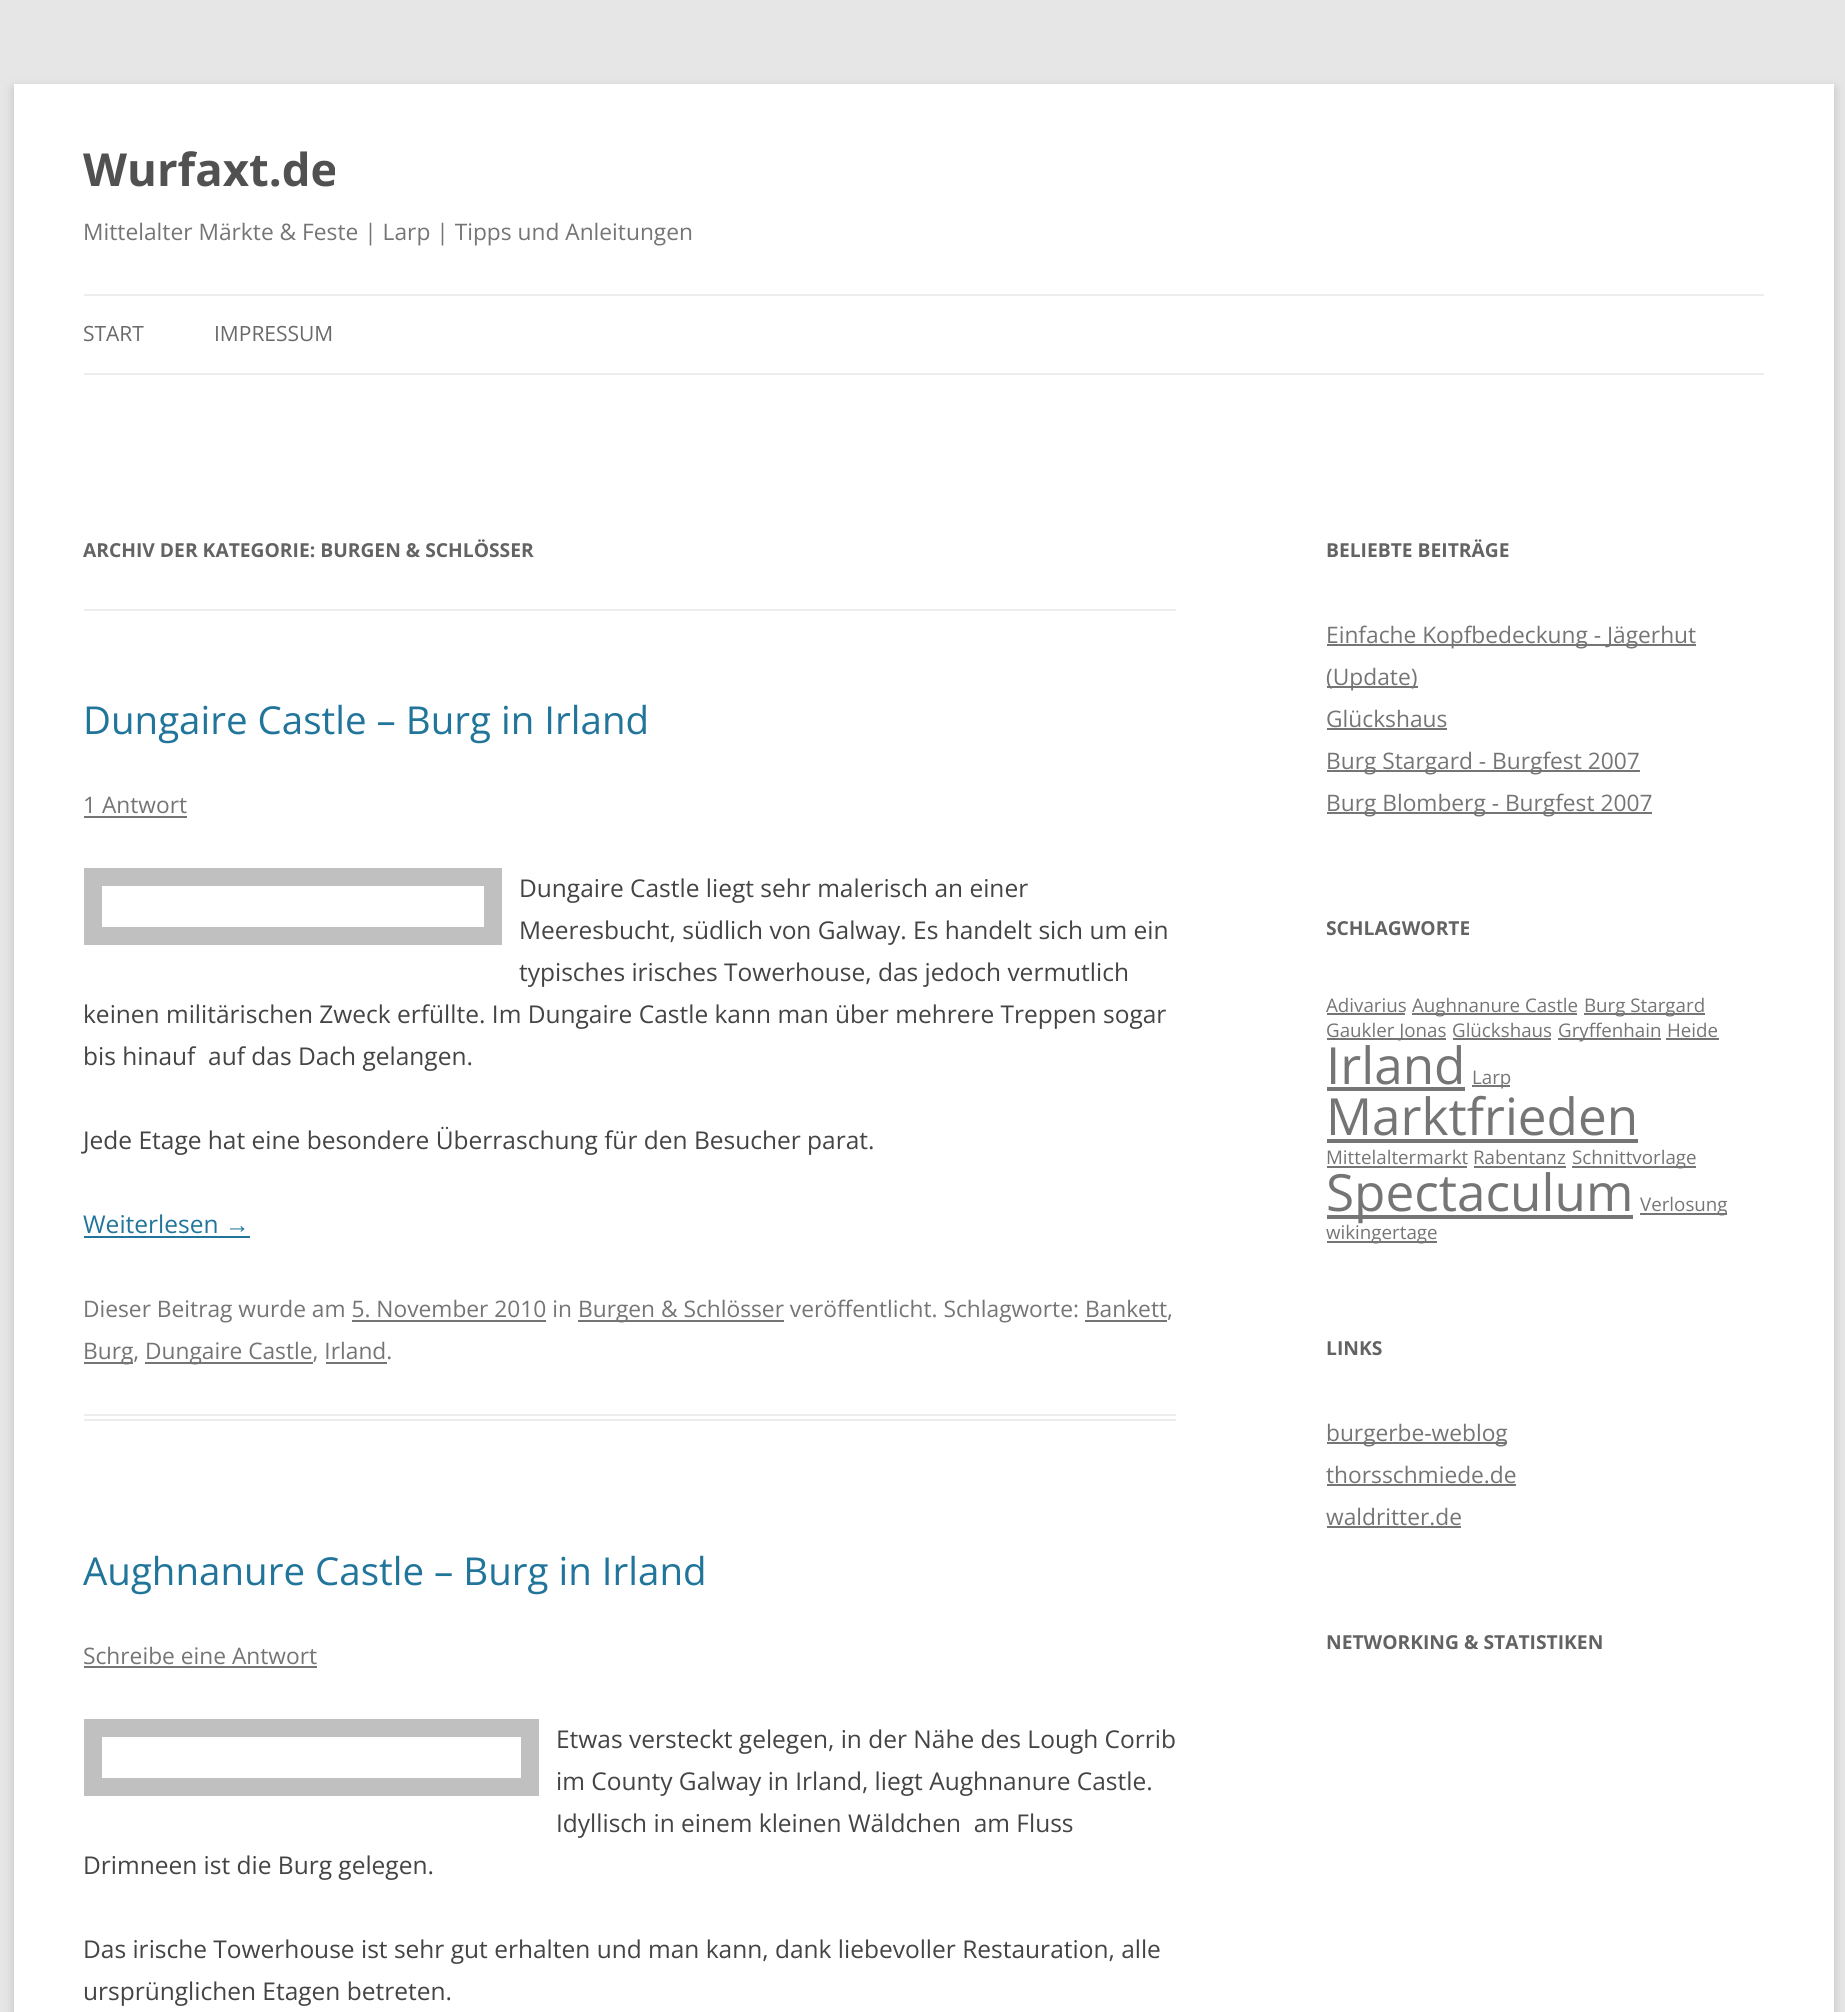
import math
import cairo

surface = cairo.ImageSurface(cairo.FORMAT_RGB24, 1845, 2012)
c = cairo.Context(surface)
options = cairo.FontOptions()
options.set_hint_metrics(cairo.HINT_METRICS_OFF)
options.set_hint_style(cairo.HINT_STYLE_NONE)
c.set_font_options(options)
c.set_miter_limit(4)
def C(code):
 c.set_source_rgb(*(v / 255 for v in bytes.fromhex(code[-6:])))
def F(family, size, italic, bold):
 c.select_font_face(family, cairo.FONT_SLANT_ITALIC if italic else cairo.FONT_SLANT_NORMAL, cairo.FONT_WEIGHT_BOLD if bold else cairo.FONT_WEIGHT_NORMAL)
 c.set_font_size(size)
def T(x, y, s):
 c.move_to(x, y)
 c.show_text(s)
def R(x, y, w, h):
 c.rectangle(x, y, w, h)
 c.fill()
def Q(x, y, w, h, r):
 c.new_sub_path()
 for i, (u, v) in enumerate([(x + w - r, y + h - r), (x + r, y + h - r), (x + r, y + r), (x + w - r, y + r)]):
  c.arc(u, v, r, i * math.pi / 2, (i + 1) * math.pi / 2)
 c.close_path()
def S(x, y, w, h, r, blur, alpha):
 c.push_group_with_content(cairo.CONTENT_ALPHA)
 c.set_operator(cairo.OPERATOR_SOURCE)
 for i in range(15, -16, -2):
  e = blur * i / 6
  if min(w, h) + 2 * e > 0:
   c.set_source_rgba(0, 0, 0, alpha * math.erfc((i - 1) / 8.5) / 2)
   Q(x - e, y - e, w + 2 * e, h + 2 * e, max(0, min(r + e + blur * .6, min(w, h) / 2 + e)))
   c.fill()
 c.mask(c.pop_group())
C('e6e6e6')
c.paint()
C('646464')
S(14,88,1820,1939,0,5,.3)
C('ffffff')
R(14,84,1820,1928)
F('Open Sans',45.5,0,1)
C('515151')
T(83,186,'Wurfaxt.de')
F('Open Sans',22.75,0,0)
C('757575')
T(83,240,'Mittelalter Märkte & Feste | Larp | Tipps und Anleitungen')
C('ededed')
R(84,294,1680,2)
R(84,373,1680,2)
F('Open Sans',21,0,0)
C('6a6a6a')
T(83,341,'START')
T(214,341,'IMPRESSUM')
C('ededed')
R(84,609,1092,2)
F('Open Sans',19.25,0,1)
C('636363')
T(83,557,'ARCHIV DER KATEGORIE: BURGEN & SCHLÖSSER')
C('ededed')
R(84,1414,1092,2)
R(84,1419,1092,2)
F('Open Sans',38.5,0,0)
C('21759b')
T(83,734,'Dungaire Castle – Burg in Irland')
F('Open Sans',22.75,0,0)
C('757575')
T(83,813,'1 Antwort')
R(84,816,103,2)
c.rectangle(93,877,400,59)
C('c0c0c0')
c.set_line_width(18)
c.stroke()
F('Open Sans',24.5,0,0)
C('444444')
T(519,897,'Dungaire Castle liegt sehr malerisch an einer')
T(519,939,'Meeresbucht, südlich von Galway. Es handelt sich um ein')
T(519,981,'typisches irisches Towerhouse, das jedoch vermutlich')
T(83,1023,'keinen militärischen Zweck erfüllte. Im Dungaire Castle kann man über mehrere Treppen sogar')
T(83,1065,'bis hinauf  auf das Dach gelangen.')
T(83,1149,'Jede Etage hat eine besondere Überraschung für den Besucher parat.')
C('21759b')
T(83,1233,'Weiterlesen')
F('Liberation Sans',24.5,0,0)
T(225,1233,'→')
R(84,1236,166,2)
F('Open Sans',22.75,0,0)
C('757575')
T(83,1317,'Dieser Beitrag wurde am 5. November 2010 in')
R(578,1320,206,2)
T(578,1317,'Burgen & Schlösser veröffentlicht. Schlagworte: Bankett,')
R(352,1320,194,2)
R(1085,1320,82,2)
R(84,1362,49,2)
T(83,1359,'Burg,')
R(145,1362,168,2)
T(145,1359,'Dungaire Castle, Irland.')
R(326,1362,61,2)
F('Open Sans',38.5,0,0)
C('21759b')
T(83,1585,'Aughnanure Castle – Burg in Irland')
F('Open Sans',22.75,0,0)
C('757575')
T(83,1664,'Schreibe eine Antwort')
R(84,1666,233,2)
c.rectangle(93,1728,437,59)
C('c0c0c0')
c.stroke()
F('Open Sans',24.5,0,0)
C('444444')
T(556,1748,'Etwas versteckt gelegen, in der Nähe des Lough Corrib')
T(556,1790,'im County Galway in Irland, liegt Aughnanure Castle.')
T(556,1832,'Idyllisch in einem kleinen Wäldchen  am Fluss')
T(83,1874,'Drimneen ist die Burg gelegen.')
T(83,1958,'Das irische Towerhouse ist sehr gut erhalten und man kann, dank liebevoller Restauration, alle')
T(83,2000,'ursprünglichen Etagen betreten.')
F('Open Sans',19.25,0,1)
C('636363')
T(1326,557,'BELIEBTE BEITRÄGE')
C('757575')
R(1327,644,369,2)
F('Open Sans',22.75,0,0)
T(1326,643,'Einfache Kopfbedeckung - Jägerhut')
R(1327,686,91,2)
T(1326,685,'(Update)')
T(1326,727,'Glückshaus')
R(1327,728,120,2)
R(1327,770,313,2)
T(1326,769,'Burg Stargard - Burgfest 2007')
R(1327,812,325,2)
T(1326,811,'Burg Blomberg - Burgfest 2007')
F('Open Sans',19.25,0,1)
C('636363')
T(1326,935,'SCHLAGWORTE')
F('Open Sans',18.75,0,0)
C('757575')
T(1326,1012,'Adivarius')
R(1327,1013,78,2)
R(1412,1013,165,2)
T(1412,1012,'Aughnanure Castle')
R(1584,1013,121,2)
T(1584,1012,'Burg Stargard')
R(1327,1038,119,2)
T(1326,1037,'Gaukler Jonas')
T(1452,1037,'Glückshaus')
R(1453,1038,98,2)
R(1558,1038,103,2)
T(1558,1037,'Gryffenhain')
T(1667,1037,'Heide')
R(1666,1038,53,2)
F('Open Sans',51.25,0,0)
T(1326,1084,'Irland')
R(1327,1087,138,4)
R(1472,1085,38,2)
F('Open Sans',18.75,0,0)
T(1472,1084,'Larp')
F('Open Sans',51.25,0,0)
T(1326,1135,'Marktfrieden')
R(1327,1139,311,4)
F('Open Sans',18.75,0,0)
T(1326,1164,'Mittelaltermarkt')
R(1327,1166,140,2)
T(1473,1164,'Rabentanz')
R(1474,1166,92,2)
R(1572,1166,124,2)
T(1572,1164,'Schnittvorlage')
R(1327,1215,306,4)
F('Open Sans',51.25,0,0)
T(1326,1211,'Spectaculum')
R(1640,1213,87,2)
F('Open Sans',18.75,0,0)
T(1640,1211,'Verlosung')
R(1327,1241,110,2)
T(1326,1239,'wikingertage')
F('Open Sans',19.25,0,1)
C('636363')
T(1326,1355,'LINKS')
C('757575')
R(1327,1442,180,2)
F('Open Sans',22.75,0,0)
T(1326,1441,'burgerbe-weblog')
T(1326,1483,'thorsschmiede.de')
R(1327,1484,189,2)
T(1326,1525,'waldritter.de')
R(1327,1526,134,2)
F('Open Sans',19.25,0,1)
C('636363')
T(1326,1649,'NETWORKING & STATISTIKEN')
surface.write_to_png('o.png')
